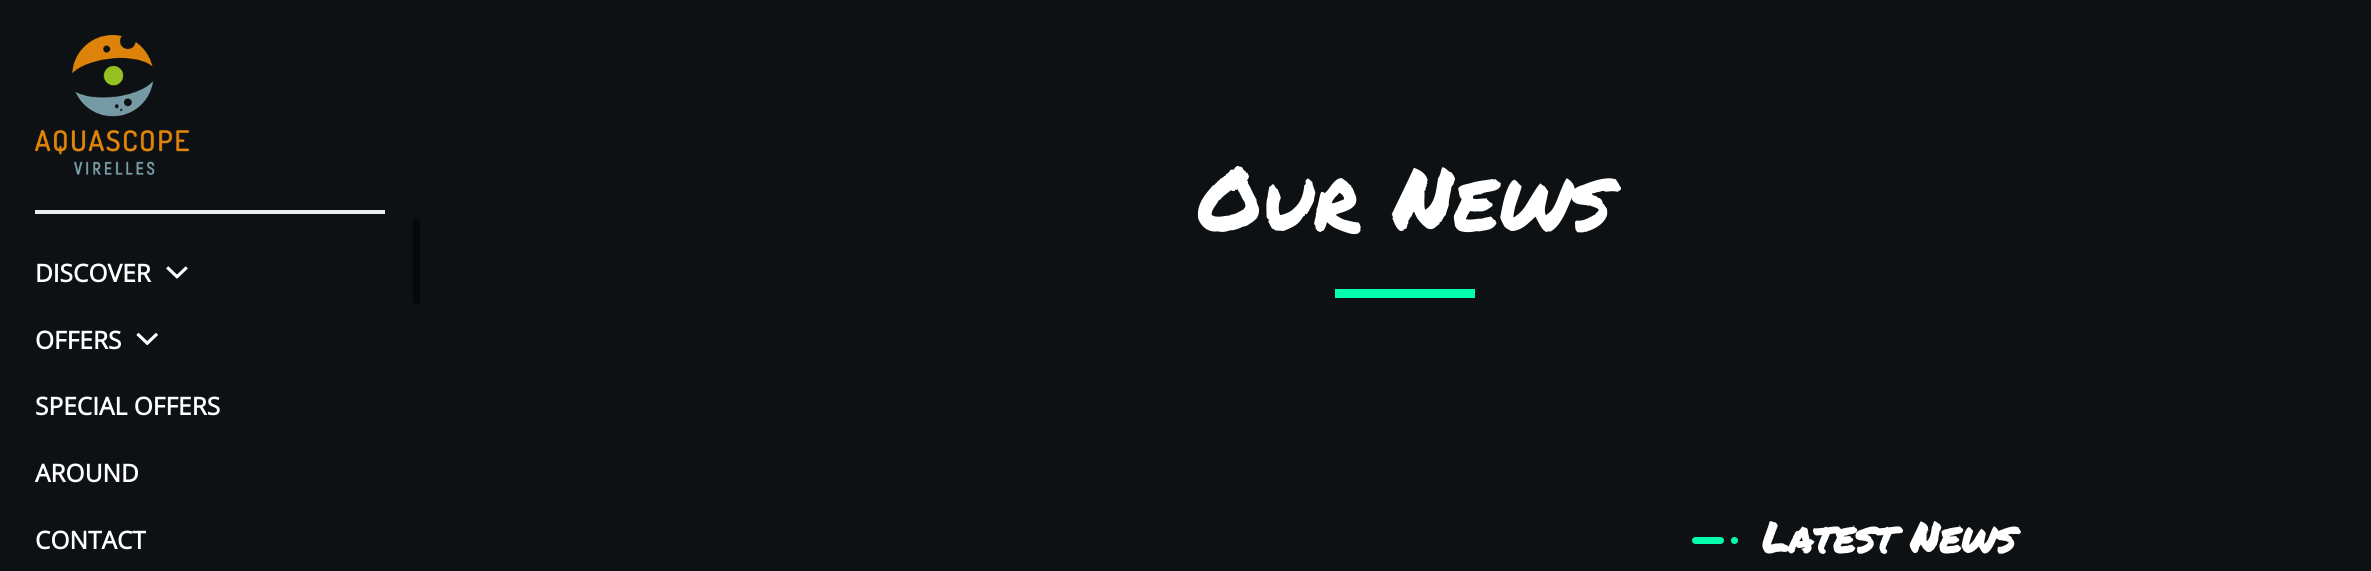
import math
import cairo

surface = cairo.ImageSurface(cairo.FORMAT_RGB24, 2371, 571)
c = cairo.Context(surface)
options = cairo.FontOptions()
options.set_hint_metrics(cairo.HINT_METRICS_OFF)
options.set_hint_style(cairo.HINT_STYLE_NONE)
c.set_font_options(options)
c.set_miter_limit(4)
def C(code):
 c.set_source_rgb(*(v / 255 for v in bytes.fromhex(code[-6:])))
def F(family, size, italic, bold):
 c.select_font_face(family, cairo.FONT_SLANT_ITALIC if italic else cairo.FONT_SLANT_NORMAL, cairo.FONT_WEIGHT_BOLD if bold else cairo.FONT_WEIGHT_NORMAL)
 c.set_font_size(size)
def T(x, y, s):
 c.move_to(x, y)
 c.show_text(s)
def R(x, y, w, h):
 c.rectangle(x, y, w, h)
 c.fill()
def Q(x, y, w, h, r):
 c.new_sub_path()
 for i, (u, v) in enumerate([(x + w - r, y + h - r), (x + r, y + h - r), (x + r, y + r), (x + w - r, y + r)]):
  c.arc(u, v, r, i * math.pi / 2, (i + 1) * math.pi / 2)
 c.close_path()
def I(path, x, y, w, h):
 c.save()
 c.set_source_surface(cairo.ImageSurface.create_from_png(path), x, y)
 c.rectangle(x, y, w, h)
 c.fill()
 c.restore()
C('0e1114')
c.paint()
C('ececec')
R(35,210,350,4)
I('1.png',35,35,154,140)
F('Open Sans',24.5,0,1)
C('ffffff')
T(35,282,'DISCOVER')
I('2.png',166,266,22,13)
T(35,349,'OFFERS')
I('3.png',136,332,22,14)
T(35,415,'SPECIAL OFFERS')
T(35,482,'AROUND')
T(35,549,'CONTACT')
C('060708')
Q(413,219,7,86,3.5)
c.fill()
F('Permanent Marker',87.5,0,0)
C('ffffff')
T(1197,231,'Our News')
C('00ffac')
R(1335,289,140,9)
Q(1692,537,32,7,3.5)
c.fill()
c.arc(1734.5,540.5,3.5,0,2 * math.pi)
c.fill()
F('Permanent Marker',42,0,1)
C('ffffff')
T(1762,553,'Latest News')
surface.write_to_png('o.png')
